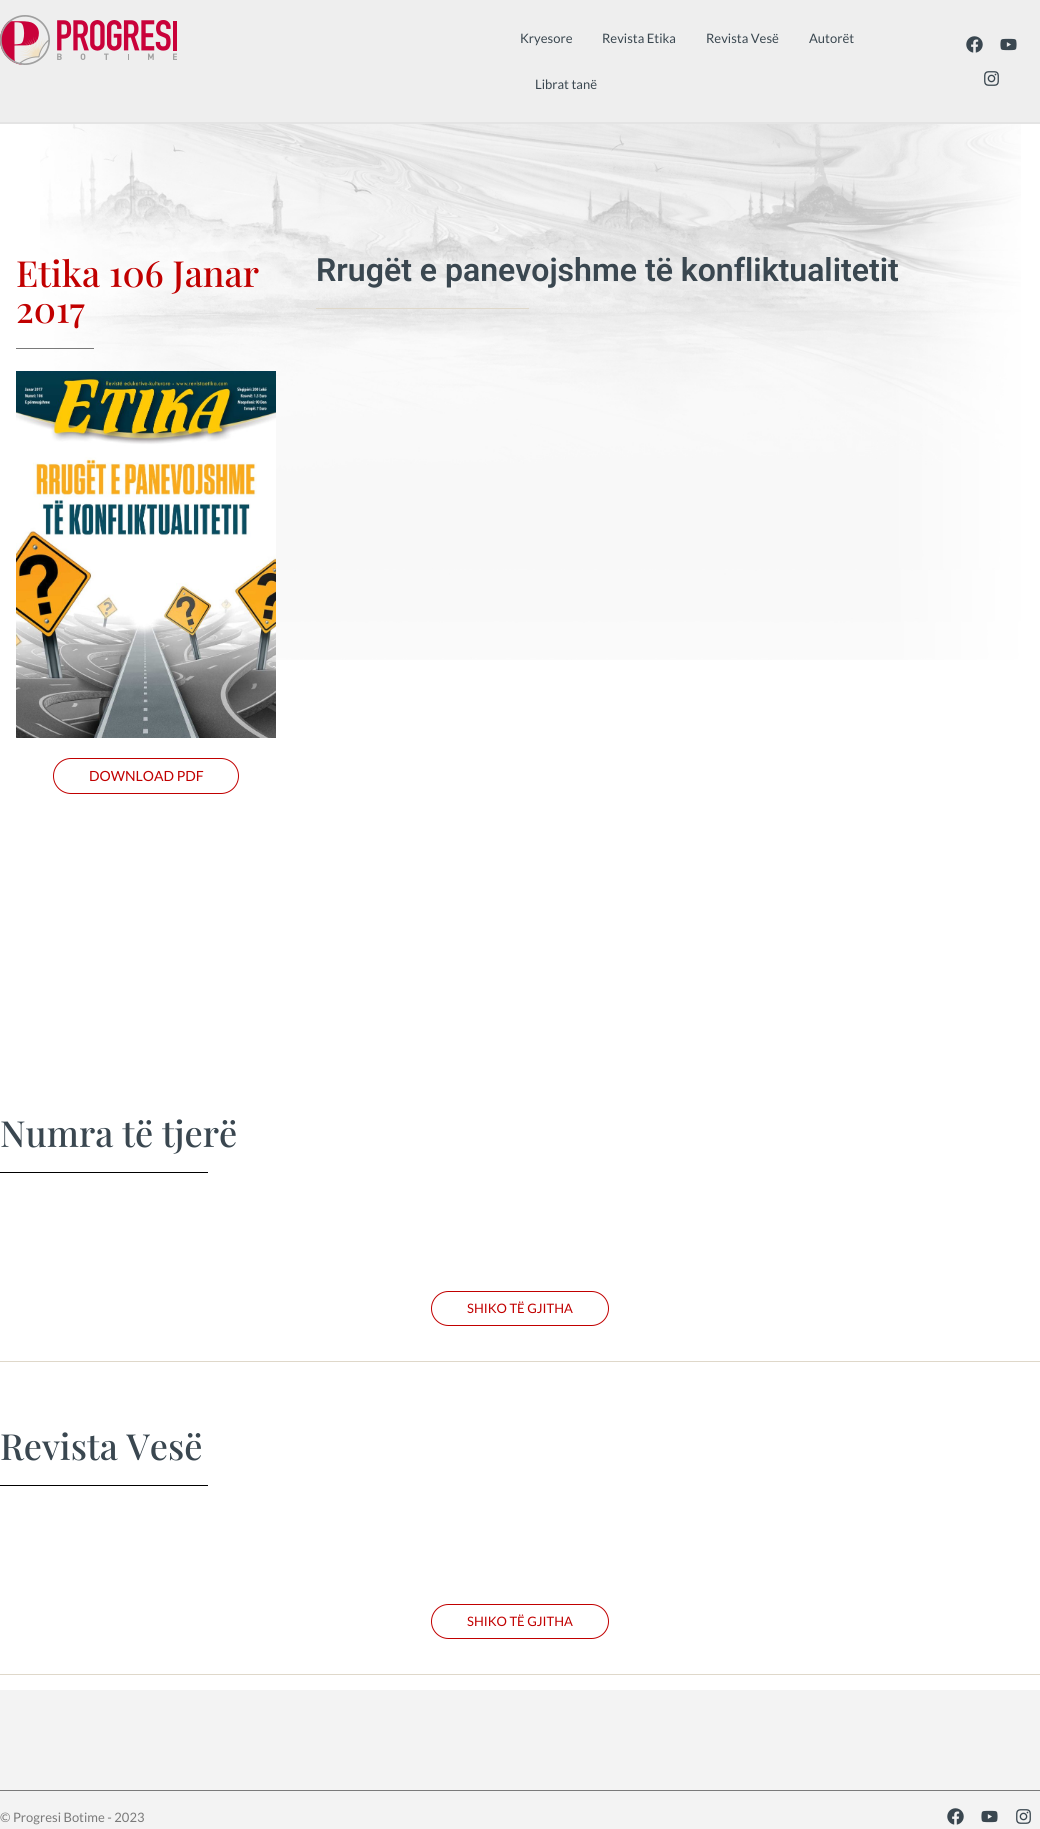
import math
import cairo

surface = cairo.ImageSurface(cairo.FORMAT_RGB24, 1040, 1829)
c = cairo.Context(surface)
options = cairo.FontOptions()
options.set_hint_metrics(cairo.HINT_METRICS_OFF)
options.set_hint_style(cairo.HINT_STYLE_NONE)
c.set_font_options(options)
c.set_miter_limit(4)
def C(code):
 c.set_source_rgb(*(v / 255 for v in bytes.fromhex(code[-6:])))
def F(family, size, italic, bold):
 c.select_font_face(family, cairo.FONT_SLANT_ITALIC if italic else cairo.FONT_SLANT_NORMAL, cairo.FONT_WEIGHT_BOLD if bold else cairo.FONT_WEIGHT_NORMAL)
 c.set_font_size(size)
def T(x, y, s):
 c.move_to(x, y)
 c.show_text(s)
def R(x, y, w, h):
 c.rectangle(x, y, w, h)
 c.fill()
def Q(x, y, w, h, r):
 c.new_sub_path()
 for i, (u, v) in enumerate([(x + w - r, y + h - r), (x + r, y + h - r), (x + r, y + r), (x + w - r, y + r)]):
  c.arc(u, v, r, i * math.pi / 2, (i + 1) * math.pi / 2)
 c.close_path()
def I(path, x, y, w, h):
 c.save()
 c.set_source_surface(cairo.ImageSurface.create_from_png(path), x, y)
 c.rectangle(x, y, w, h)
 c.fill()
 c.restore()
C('ffffff')
c.paint()
C('eeeeee')
R(0,0,1040,122)
C('e4e4e4')
R(0,122,1040,2)
I('1.png',0,15,177,50)
F('Lato',13,0,0)
C('3a4750')
T(520,43,'Kryesore')
T(602,43,'Revista Etika')
T(706,43,'Revista Vesë')
T(809,43,'Autorët')
T(535,89,'Librat tanë')
I('2.png',966,36,17,17)
I('3.png',1000,38,17,13)
I('4.png',984,71,15,15)
I('5.png',40,124,981,536)
F('Playfair Display Medium',36,0,0)
C('c10000')
T(16,287,'Etika 106 Janar')
T(16,323,'2017')
C('7a7a7a')
R(16,348,78,1)
I('6.png',16,371,260,367)
Q(53.5,758.5,185,35,17.5)
C('c10000')
c.set_line_width(1)
c.stroke()
F('Lato',14,0,0)
T(89,781,'DOWNLOAD PDF')
F('Roboto SemiBold',32,0,0)
C('3a4750')
T(316,281,'Rrugët e panevojshme të konfliktualitetit')
C('dfd8ca')
R(316,308,213,1)
F('Playfair Display Medium',36,0,0)
C('3a4750')
T(0,1147,'Numra të tjerë')
C('000000')
R(0,1172,208,1)
Q(431.5,1291.5,177,34,17)
C('c10000')
c.stroke()
F('Lato',13,0,0)
T(467,1313,'SHIKO TË GJITHA')
C('dfd8ca')
R(0,1361,1040,1)
F('Playfair Display Medium',36,0,0)
C('3a4750')
T(0,1460,'Revista Vesë')
C('000000')
R(0,1485,208,1)
Q(431.5,1604.5,177,34,17)
C('c10000')
c.stroke()
F('Lato',13,0,0)
T(467,1626,'SHIKO TË GJITHA')
C('dfd8ca')
R(0,1674,1040,1)
C('f3f3f3')
R(0,1690,1040,100)
C('7a7a7a')
R(0,1790,1040,1)
C('f3f3f3')
R(0,1791,1040,38)
C('7a7a7a')
T(0,1822,'© Progresi Botime - 2023')
I('7.png',947,1808,17,17)
I('8.png',981,1810,17,13)
I('9.png',1016,1809,15,15)
surface.write_to_png('o.png')
